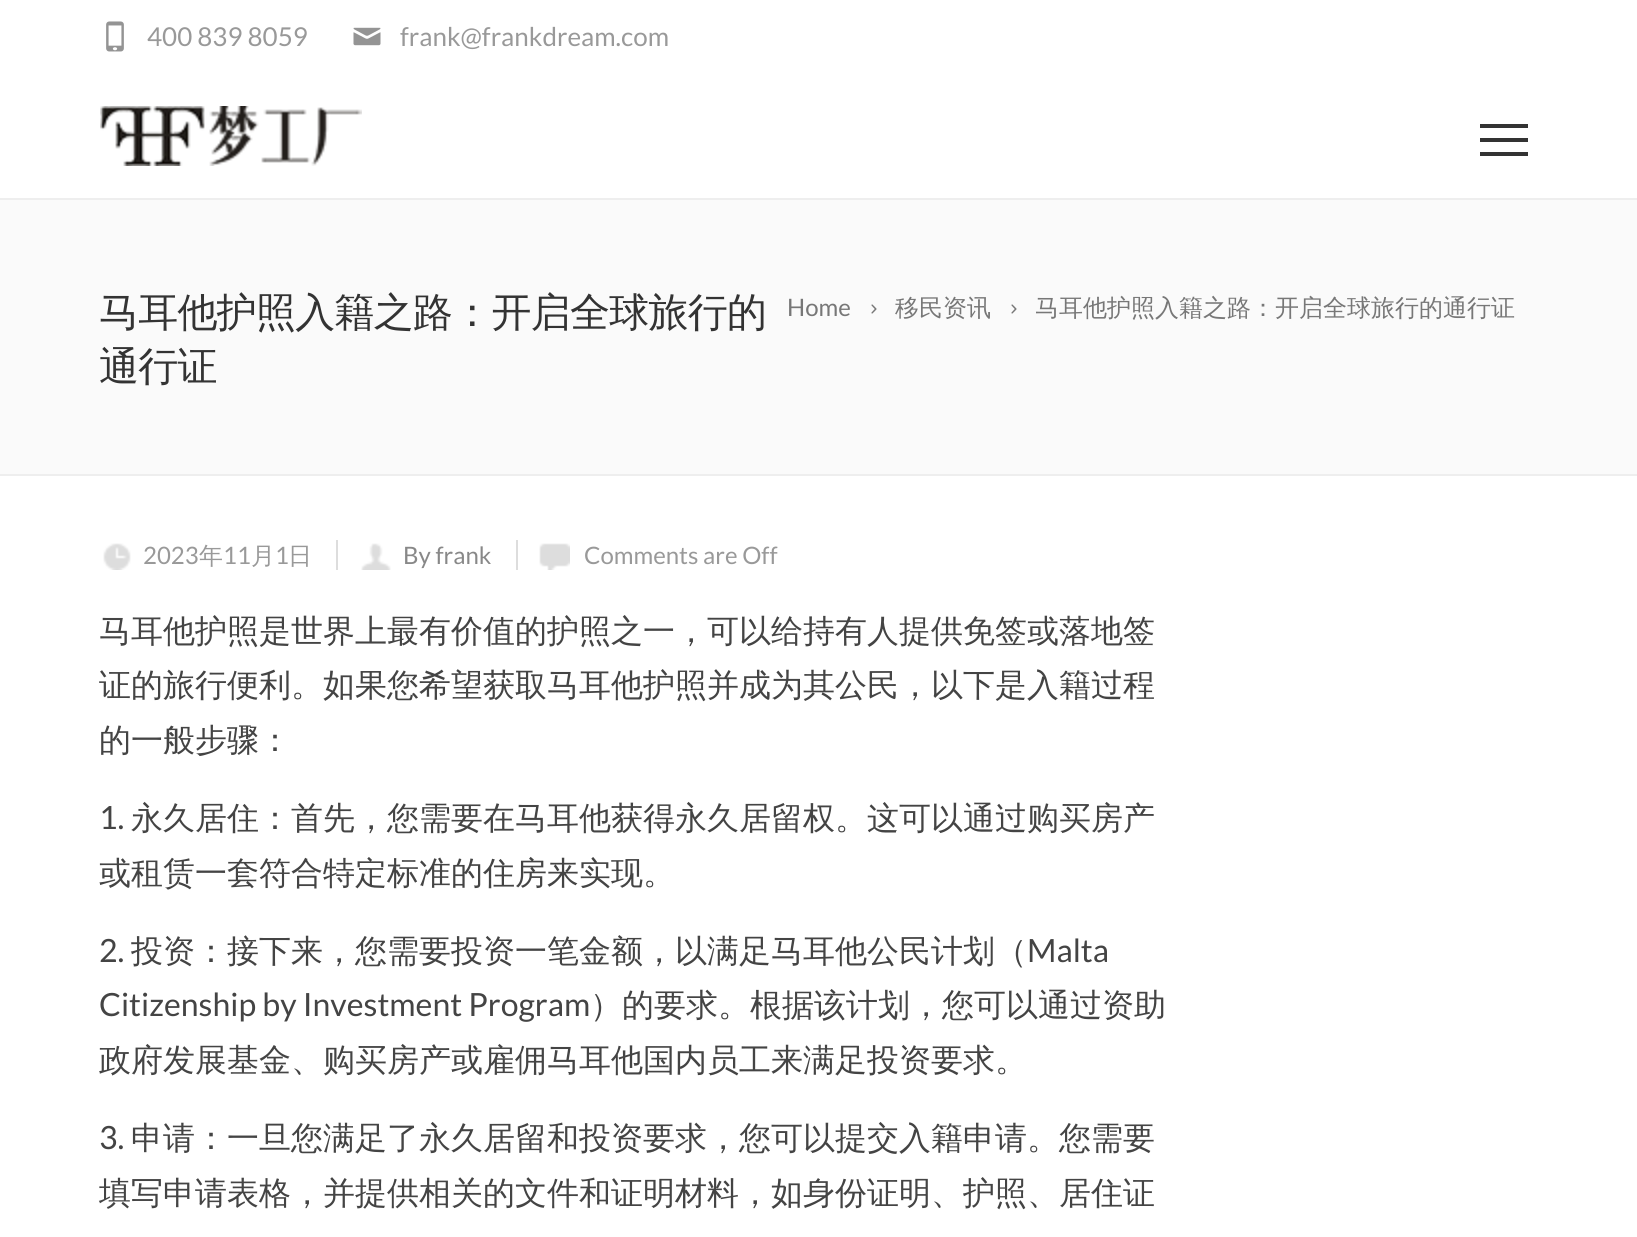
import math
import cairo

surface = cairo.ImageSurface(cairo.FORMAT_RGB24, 1637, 1237)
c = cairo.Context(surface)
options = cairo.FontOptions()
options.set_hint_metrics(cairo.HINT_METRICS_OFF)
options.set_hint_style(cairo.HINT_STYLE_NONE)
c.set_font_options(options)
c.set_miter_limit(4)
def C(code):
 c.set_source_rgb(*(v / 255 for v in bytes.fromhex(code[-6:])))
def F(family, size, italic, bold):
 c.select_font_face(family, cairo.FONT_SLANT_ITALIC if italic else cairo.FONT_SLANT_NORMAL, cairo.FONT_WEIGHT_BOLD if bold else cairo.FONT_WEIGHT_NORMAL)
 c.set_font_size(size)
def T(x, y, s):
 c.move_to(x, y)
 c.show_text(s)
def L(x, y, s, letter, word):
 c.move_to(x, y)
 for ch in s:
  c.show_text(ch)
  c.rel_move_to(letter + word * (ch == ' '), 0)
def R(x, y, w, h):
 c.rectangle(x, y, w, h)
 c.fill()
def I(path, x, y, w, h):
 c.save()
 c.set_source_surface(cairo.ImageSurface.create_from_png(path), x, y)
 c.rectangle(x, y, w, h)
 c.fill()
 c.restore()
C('ffffff')
c.paint()
c.rectangle(-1,-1,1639,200)
C('eeeeee')
c.stroke()
I('1.png',106,21,18,31)
F('Lato',26,0,0)
C('999999')
T(147,46,'400 839 8059')
I('2.png',353,27,28,19)
T(400,46,'frank@frankdream.com')
I('3.png',100,106,262,60)
C('333333')
R(1480,124,48,4)
R(1480,138,48,4)
R(1480,152,48,4)
C('fafafa')
R(0,200,1637,274)
C('eeeeee')
R(0,474,1637,2)
F('WenQuanYi Zen Hei Medium',40,0,0)
C('333333')
L(99,326,'马耳他护照入籍之路：开启全球旅行的',-.75,0)
L(99,380,'通行证',-.75,0)
F('Lato',24,0,0)
C('777777')
T(787,316,'Home')
I('4.png',871,304,6,10)
F('WenQuanYi Zen Hei Medium',24,0,0)
T(895,316,'移民资讯')
I('4.png',1011,304,6,10)
T(1035,316,'马耳他护照入籍之路：开启全球旅行的通行证')
I('5.png',103,543,28,27)
F('Lato',24,0,0)
C('999999')
T(143,564,'2023')
F('WenQuanYi Zen Hei Medium',24,0,0)
T(199,564,'年')
F('Lato',24,0,0)
T(223,564,'11')
F('WenQuanYi Zen Hei Medium',24,0,0)
T(251,564,'月')
F('Lato',24,0,0)
T(275,564,'1')
F('WenQuanYi Zen Hei Medium',24,0,0)
T(288,564,'日')
C('dddddd')
R(336,540,2,30)
I('6.png',361,543,30,27)
F('Lato',24,0,0)
C('888888')
T(403,564,'By frank')
C('dddddd')
R(516,540,2,30)
I('7.png',539,543,31,27)
C('999999')
T(584,564,'Comments are Off')
F('WenQuanYi Zen Hei Medium',32,0,0)
C('444444')
T(99,642,'马耳他护照是世界上最有价值的护照之一，可以给持有人提供免签或落地签')
T(99,696,'证的旅行便利。如果您希望获取马耳他护照并成为其公民，以下是入籍过程')
T(99,751,'的一般步骤：')
F('Lato',32,0,0)
T(99,829,'1.')
F('WenQuanYi Zen Hei Medium',32,0,0)
T(131,829,'永久居住：首先，您需要在马耳他获得永久居留权。这可以通过购买房产')
T(99,884,'或租赁一套符合特定标准的住房来实现。')
F('Lato',32,0,0)
T(99,962,'2.')
F('WenQuanYi Zen Hei Medium',32,0,0)
T(131,962,'投资：接下来，您需要投资一笔金额，以满足马耳他公民计划（')
F('Lato',32,0,0)
T(1027,962,'Malta')
T(99,1016,'Citizenship by Investment Program')
F('WenQuanYi Zen Hei Medium',32,0,0)
T(590,1016,'）的要求。根据该计划，您可以通过资助')
T(99,1071,'政府发展基金、购买房产或雇佣马耳他国内员工来满足投资要求。')
F('Lato',32,0,0)
T(99,1149,'3.')
F('WenQuanYi Zen Hei Medium',32,0,0)
T(131,1149,'申请：一旦您满足了永久居留和投资要求，您可以提交入籍申请。您需要')
T(99,1204,'填写申请表格，并提供相关的文件和证明材料，如身份证明、护照、居住证')
surface.write_to_png('o.png')
